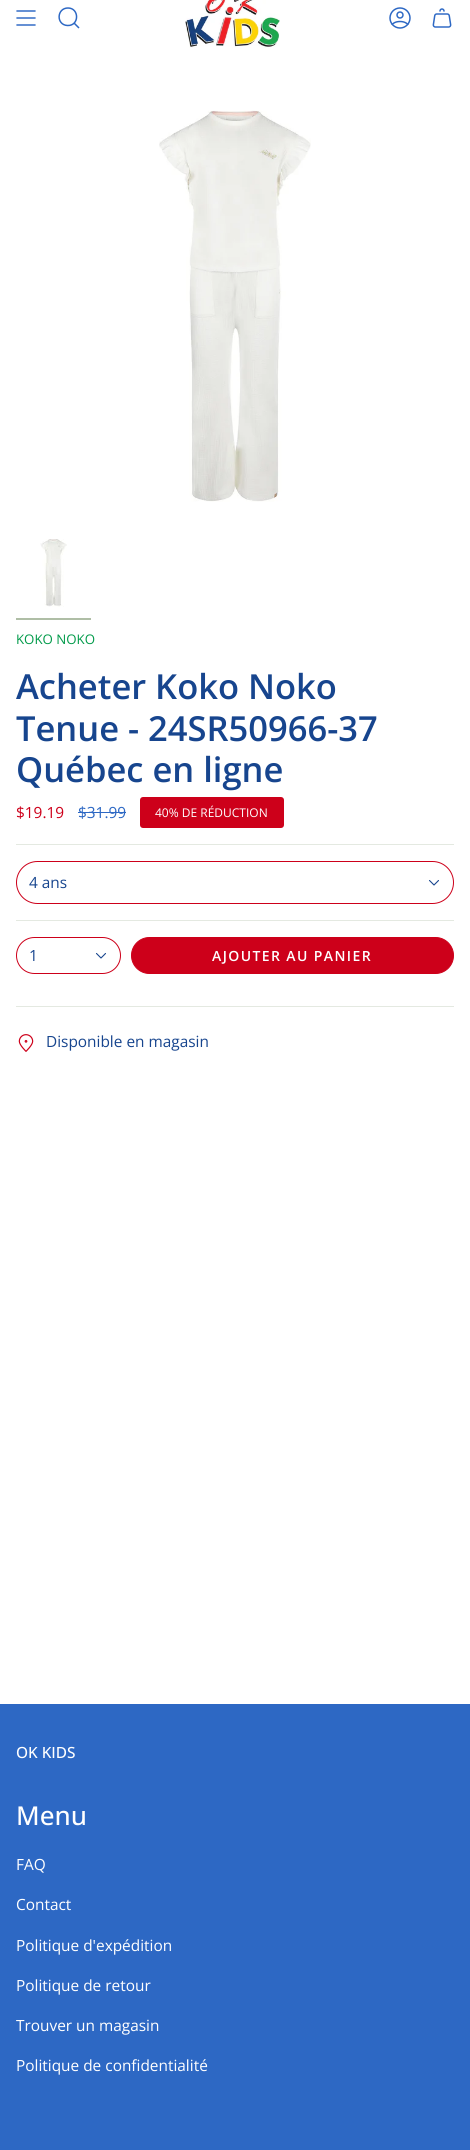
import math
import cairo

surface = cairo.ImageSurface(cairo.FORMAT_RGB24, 470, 2150)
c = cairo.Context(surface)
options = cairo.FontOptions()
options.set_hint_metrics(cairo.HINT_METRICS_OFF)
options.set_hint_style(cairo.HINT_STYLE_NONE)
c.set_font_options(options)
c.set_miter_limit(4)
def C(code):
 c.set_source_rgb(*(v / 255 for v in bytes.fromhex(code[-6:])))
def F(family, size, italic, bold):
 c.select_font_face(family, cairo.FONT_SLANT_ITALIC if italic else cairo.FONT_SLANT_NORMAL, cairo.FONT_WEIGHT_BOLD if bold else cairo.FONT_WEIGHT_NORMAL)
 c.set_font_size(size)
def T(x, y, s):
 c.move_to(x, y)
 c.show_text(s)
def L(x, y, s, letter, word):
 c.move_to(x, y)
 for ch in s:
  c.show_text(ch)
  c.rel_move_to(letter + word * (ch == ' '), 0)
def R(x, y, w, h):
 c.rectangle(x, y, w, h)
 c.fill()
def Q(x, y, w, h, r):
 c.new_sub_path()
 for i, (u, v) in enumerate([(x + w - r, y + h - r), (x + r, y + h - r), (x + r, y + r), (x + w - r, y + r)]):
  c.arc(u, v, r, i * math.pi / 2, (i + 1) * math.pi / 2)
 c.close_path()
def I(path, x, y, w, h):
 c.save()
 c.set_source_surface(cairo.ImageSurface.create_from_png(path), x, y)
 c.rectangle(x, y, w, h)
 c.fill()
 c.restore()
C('ffffff')
c.paint()
c.new_path()
c.move_to(17,11)
c.line_to(35,11)
c.move_to(17,18)
c.line_to(35,18)
c.move_to(17,25)
c.line_to(35,25)
C('2d68c4')
c.set_line_width(1.5)
c.set_line_cap(cairo.LINE_CAP_ROUND)
c.set_line_join(cairo.LINE_JOIN_ROUND)
c.stroke()
c.new_path()
c.move_to(68,8)
c.curve_to(79.5,8,79.5,26,67.5,25.5)
c.curve_to(56,25,56.5,8,68,8)
c.close_path()
c.move_to(74,23)
c.line_to(79,28)
c.set_line_cap(cairo.LINE_CAP_BUTT)
c.set_line_join(cairo.LINE_JOIN_MITER)
c.stroke()
I('1.png',185,0,95,48)
I('2.png',389,7,22,22)
I('3.png',432,8,20,20)
I('4.png',159,110,152,392)
I('5.png',40,539,27,68)
C('afbea6')
R(16,618,75,2)
F('Open Sans',13.25,0,0)
C('009a49')
T(16,644,'KOKO NOKO')
F('Open Sans SemiBold',34.5,0,0)
C('17458e')
T(16,699,'Acheter Koko Noko')
T(16,741,'Tenue - 24SR50966-37')
T(16,782,'Québec en ligne')
F('Open Sans',15.4,0,0)
C('cd001a')
T(16,818,'$19.19')
C('2d68c4')
T(78,818,'$31.99')
R(78,812,48,1)
C('cd001a')
Q(140,797,144,31,3)
c.fill()
F('Open Sans',12,0,0)
C('ffffff')
T(155,817,'40% DE RÉDUCTION')
C('e4e9e1')
R(16,844,438,1)
R(16,920,438,1)
Q(16.5,861.5,437,42,21)
C('cd001a')
c.set_line_width(1)
c.stroke()
F('Open Sans',15.4,0,0)
C('17458e')
T(29,888,'4 ans')
c.new_path()
c.move_to(429.5,880.5)
c.line_to(434,885)
c.line_to(438.5,880.5)
c.set_line_width(1.1)
c.set_line_cap(cairo.LINE_CAP_ROUND)
c.set_line_join(cairo.LINE_JOIN_ROUND)
c.stroke()
Q(16.5,937.5,104,36,18)
C('cd001a')
c.set_line_width(1)
c.set_line_cap(cairo.LINE_CAP_BUTT)
c.set_line_join(cairo.LINE_JOIN_MITER)
c.stroke()
C('17458e')
T(29,961,'1')
c.new_path()
c.move_to(96.5,953.5)
c.line_to(101,958)
c.line_to(105.5,953.5)
c.set_line_width(1.1)
c.set_line_cap(cairo.LINE_CAP_ROUND)
c.set_line_join(cairo.LINE_JOIN_ROUND)
c.stroke()
C('cd001a')
Q(131.5,937.5,322,36,18)
c.fill_preserve()
c.set_line_width(1)
c.set_line_cap(cairo.LINE_CAP_BUTT)
c.set_line_join(cairo.LINE_JOIN_MITER)
c.stroke()
F('Open Sans SemiBold',14,0,0)
C('ffffff')
L(212,961,'AJOUTER AU PANIER',1.4,0)
C('e4e9e1')
R(16,1006,438,1)
I('6.png',18,1034,16,18)
F('Open Sans',15.4,0,0)
C('17458e')
T(46,1047,'Disponible en magasin')
C('2d68c4')
R(0,1704,470,446)
F('Open Sans Medium',15.4,0,0)
C('ffffff')
T(16,1758,'OK KIDS')
F('Open Sans Medium',26,0,0)
T(16,1825,'Menu')
F('Open Sans',15.4,0,0)
T(16,1870,'FAQ')
T(16,1910,'Contact')
T(16,1951,'Politique d\'expédition')
T(16,1991,'Politique de retour')
T(16,2031,'Trouver un magasin')
T(16,2071,'Politique de confidentialité')
surface.write_to_png('o.png')
